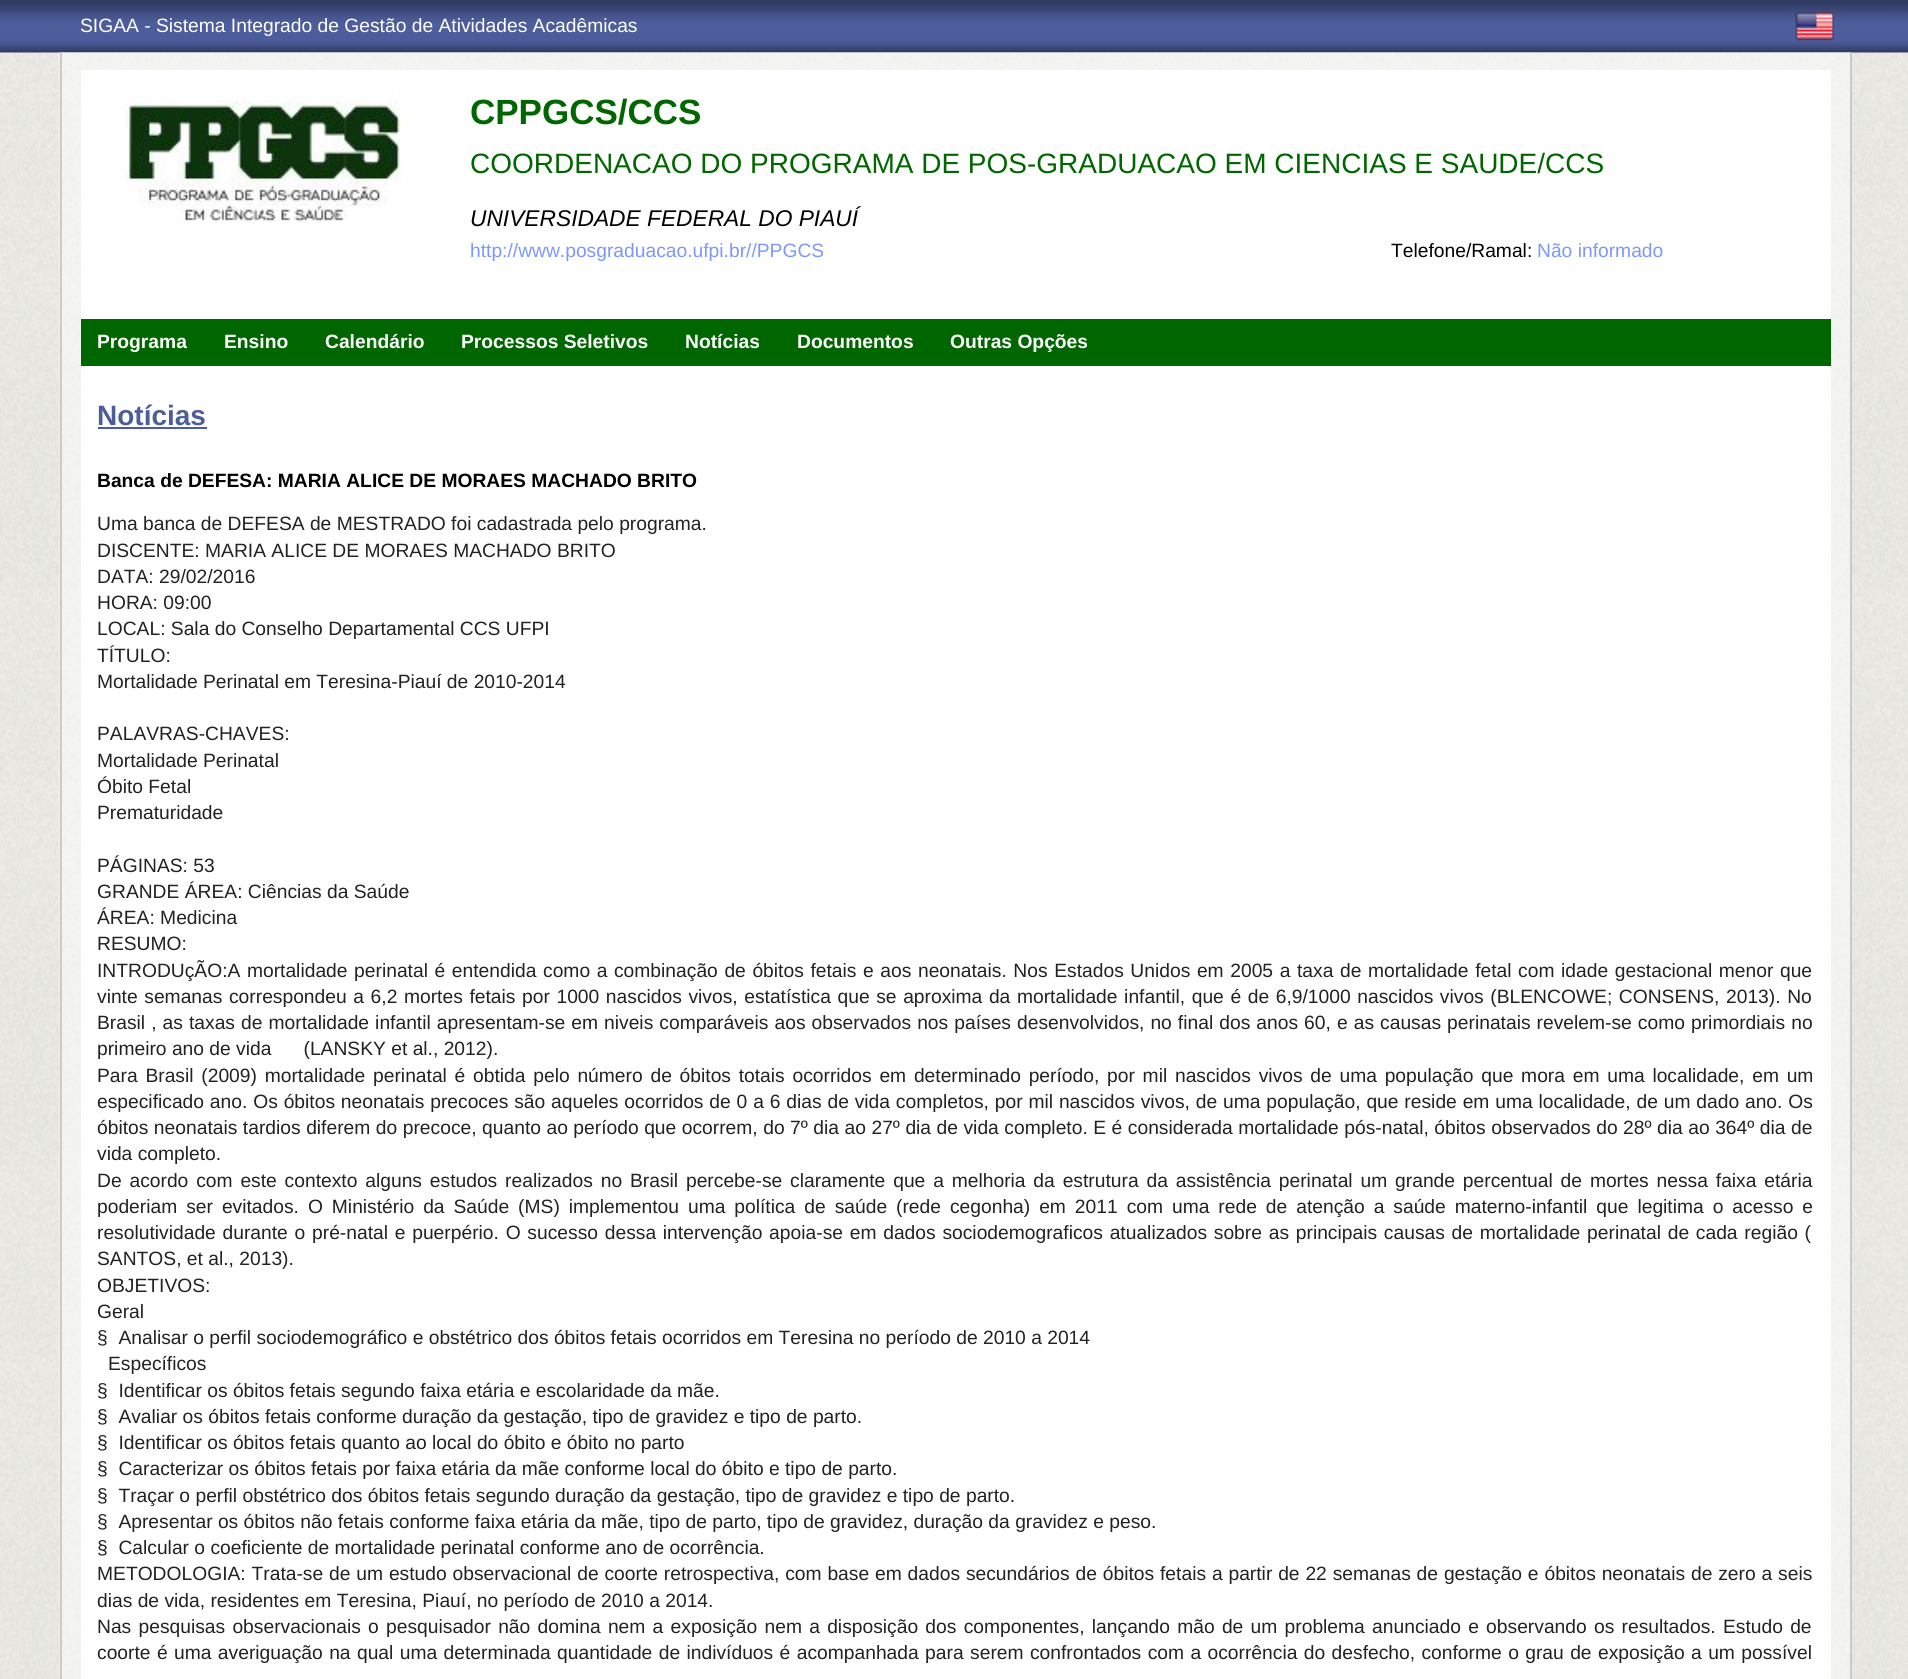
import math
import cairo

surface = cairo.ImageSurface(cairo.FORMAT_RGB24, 1908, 1679)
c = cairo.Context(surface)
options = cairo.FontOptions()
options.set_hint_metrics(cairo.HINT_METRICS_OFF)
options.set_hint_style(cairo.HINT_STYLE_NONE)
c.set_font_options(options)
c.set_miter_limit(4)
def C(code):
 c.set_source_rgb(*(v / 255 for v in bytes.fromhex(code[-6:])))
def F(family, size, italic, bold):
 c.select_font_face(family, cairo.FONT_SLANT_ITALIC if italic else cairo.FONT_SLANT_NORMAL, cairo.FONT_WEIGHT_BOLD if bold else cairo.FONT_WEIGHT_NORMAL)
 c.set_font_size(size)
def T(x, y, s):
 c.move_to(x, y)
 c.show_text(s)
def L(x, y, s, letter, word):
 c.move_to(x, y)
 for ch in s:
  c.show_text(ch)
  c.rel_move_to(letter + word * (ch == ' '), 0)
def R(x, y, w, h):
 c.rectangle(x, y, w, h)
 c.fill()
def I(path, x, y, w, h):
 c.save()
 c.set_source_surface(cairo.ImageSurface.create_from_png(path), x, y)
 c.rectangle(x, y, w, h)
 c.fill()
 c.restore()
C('ffffff')
c.paint()
I('1.png',0,52,1908,1627)
I('2.png',0,0,1908,53)
F('Liberation Sans',19.25,0,0)
C('ffffff')
T(80,32,'SIGAA - Sistema Integrado de Gestão de Atividades Acadêmicas')
I('3.png',1795,12,39,29)
I('4.png',59,52,1793,1627)
C('cacac7')
R(1850,53,2,1626)
R(60,53,2,1626)
C('ffffff')
R(81,70,1750,1609)
I('5.png',124,88,279,135)
F('Liberation Sans',35,0,1)
C('006600')
T(470,124,'CPPGCS/CCS')
F('Liberation Sans',28,0,0)
T(470,173,'COORDENACAO DO PROGRAMA DE POS-GRADUACAO EM CIENCIAS E SAUDE/CCS')
F('Liberation Sans',22.75,1,0)
C('000000')
T(470,226,'UNIVERSIDADE FEDERAL DO PIAUÍ')
F('Liberation Sans',19.25,0,0)
C('7d97fe')
T(470,257,'http://www.posgraduacao.ufpi.br//PPGCS')
C('000000')
T(1391,257,'Telefone/Ramal:')
C('7d97fe')
T(1537,257,'Não informado')
C('006600')
R(81,319,1750,47)
F('Liberation Sans',19.25,0,1)
C('ffffff')
T(97,348,'Programa')
T(224,348,'Ensino')
T(325,348,'Calendário')
T(461,348,'Processos Seletivos')
T(685,348,'Notícias')
T(797,348,'Documentos')
T(950,348,'Outras Opções')
F('Liberation Sans',28,0,1)
C('4d5d9c')
T(97,425,'Notícias')
R(98,427,109,2)
F('Liberation Sans',19.25,0,1)
C('000000')
T(97,487,'Banca de DEFESA: MARIA ALICE DE MORAES MACHADO BRITO')
F('Liberation Sans',19.25,0,0)
C('222222')
T(97,530,'Uma banca de DEFESA de MESTRADO foi cadastrada pelo programa.')
T(97,557,'DISCENTE: MARIA ALICE DE MORAES MACHADO BRITO')
T(97,583,'DATA: 29/02/2016')
T(97,609,'HORA: 09:00')
T(97,635,'LOCAL: Sala do Conselho Departamental CCS UFPI')
T(97,662,'TÍTULO:')
T(97,688,'Mortalidade Perinatal em Teresina-Piauí de 2010-2014')
T(97,740,'PALAVRAS-CHAVES:')
T(97,767,'Mortalidade Perinatal')
T(97,793,'Óbito Fetal')
T(97,819,'Prematuridade')
T(97,872,'PÁGINAS: 53')
T(97,898,'GRANDE ÁREA: Ciências da Saúde')
T(97,924,'ÁREA: Medicina')
T(97,950,'RESUMO:')
L(97,977,'INTRODUçÃO:A mortalidade perinatal é entendida como a combinação de óbitos fetais e aos neonatais. Nos Estados Unidos em 2005 a taxa de mortalidade fetal com idade gestacional menor que',0,1.25)
L(97,1003,'vinte semanas correspondeu a 6,2 mortes fetais por 1000 nascidos vivos, estatística que se aproxima da mortalidade infantil, que é de 6,9/1000 nascidos vivos (BLENCOWE; CONSENS, 2013). No',0,1.25)
L(97,1029,'Brasil , as taxas de mortalidade infantil apresentam-se em niveis comparáveis aos observados nos países desenvolvidos, no final dos anos 60, e as causas perinatais revelem-se como primordiais no',0,.7)
T(97,1055,'primeiro ano de vida      (LANSKY et al., 2012).')
L(97,1082,'Para Brasil (2009) mortalidade perinatal é obtida pelo número de óbitos totais ocorridos em determinado período, por mil nascidos vivos de uma população que mora em uma localidade, em um',0,2.4)
L(97,1108,'especificado ano. Os óbitos neonatais precoces são aqueles ocorridos de 0 a 6 dias de vida completos, por mil nascidos vivos, de uma população, que reside em uma localidade, de um dado ano. Os',0,.5)
L(97,1134,'óbitos neonatais tardios diferem do precoce, quanto ao período que ocorrem, do 7º dia ao 27º dia de vida completo. E é considerada mortalidade pós-natal, óbitos observados do 28º dia ao 364º dia de',0,.15)
T(97,1160,'vida completo.')
L(97,1187,'De acordo com este contexto alguns estudos realizados no Brasil percebe-se claramente que a melhoria da estrutura da assistência perinatal um grande percentual de mortes nessa faixa etária',0,2.5)
L(97,1213,'poderiam ser evitados. O Ministério da Saúde (MS) implementou uma política de saúde (rede cegonha) em 2011 com uma rede de atenção a saúde materno-infantil que legitima o acesso e',0,3.6)
L(97,1239,'resolutividade durante o pré-natal e puerpério. O sucesso dessa intervenção apoia-se em dados sociodemograficos atualizados sobre as principais causas de mortalidade perinatal de cada região (',0,1.4)
T(97,1265,'SANTOS, et al., 2013).')
T(97,1292,'OBJETIVOS:')
T(97,1318,'Geral')
T(97,1344,'§  Analisar o perfil sociodemográfico e obstétrico dos óbitos fetais ocorridos em Teresina no período de 2010 a 2014')
T(108,1370,'Específicos')
T(97,1397,'§  Identificar os óbitos fetais segundo faixa etária e escolaridade da mãe.')
T(97,1423,'§  Avaliar os óbitos fetais conforme duração da gestação, tipo de gravidez e tipo de parto.')
T(97,1449,'§  Identificar os óbitos fetais quanto ao local do óbito e óbito no parto')
T(97,1475,'§  Caracterizar os óbitos fetais por faixa etária da mãe conforme local do óbito e tipo de parto.')
T(97,1502,'§  Traçar o perfil obstétrico dos óbitos fetais segundo duração da gestação, tipo de gravidez e tipo de parto.')
T(97,1528,'§  Apresentar os óbitos não fetais conforme faixa etária da mãe, tipo de parto, tipo de gravidez, duração da gravidez e peso.')
T(97,1554,'§  Calcular o coeficiente de mortalidade perinatal conforme ano de ocorrência.')
L(97,1580,'METODOLOGIA: Trata-se de um estudo observacional de coorte retrospectiva, com base em dados secundários de óbitos fetais a partir de 22 semanas de gestação e óbitos neonatais de zero a seis',0,.5)
T(97,1607,'dias de vida, residentes em Teresina, Piauí, no período de 2010 a 2014.')
L(97,1633,'Nas pesquisas observacionais o pesquisador não domina nem a exposição nem a disposição dos componentes, lançando mão de um problema anunciado e observando os resultados. Estudo de',0,1.9)
L(97,1659,'coorte é uma averiguação na qual uma determinada quantidade de indivíduos é acompanhada para serem confrontados com a ocorrência do desfecho, conforme o grau de exposição a um possível',0,1.05)
surface.write_to_png('o.png')
